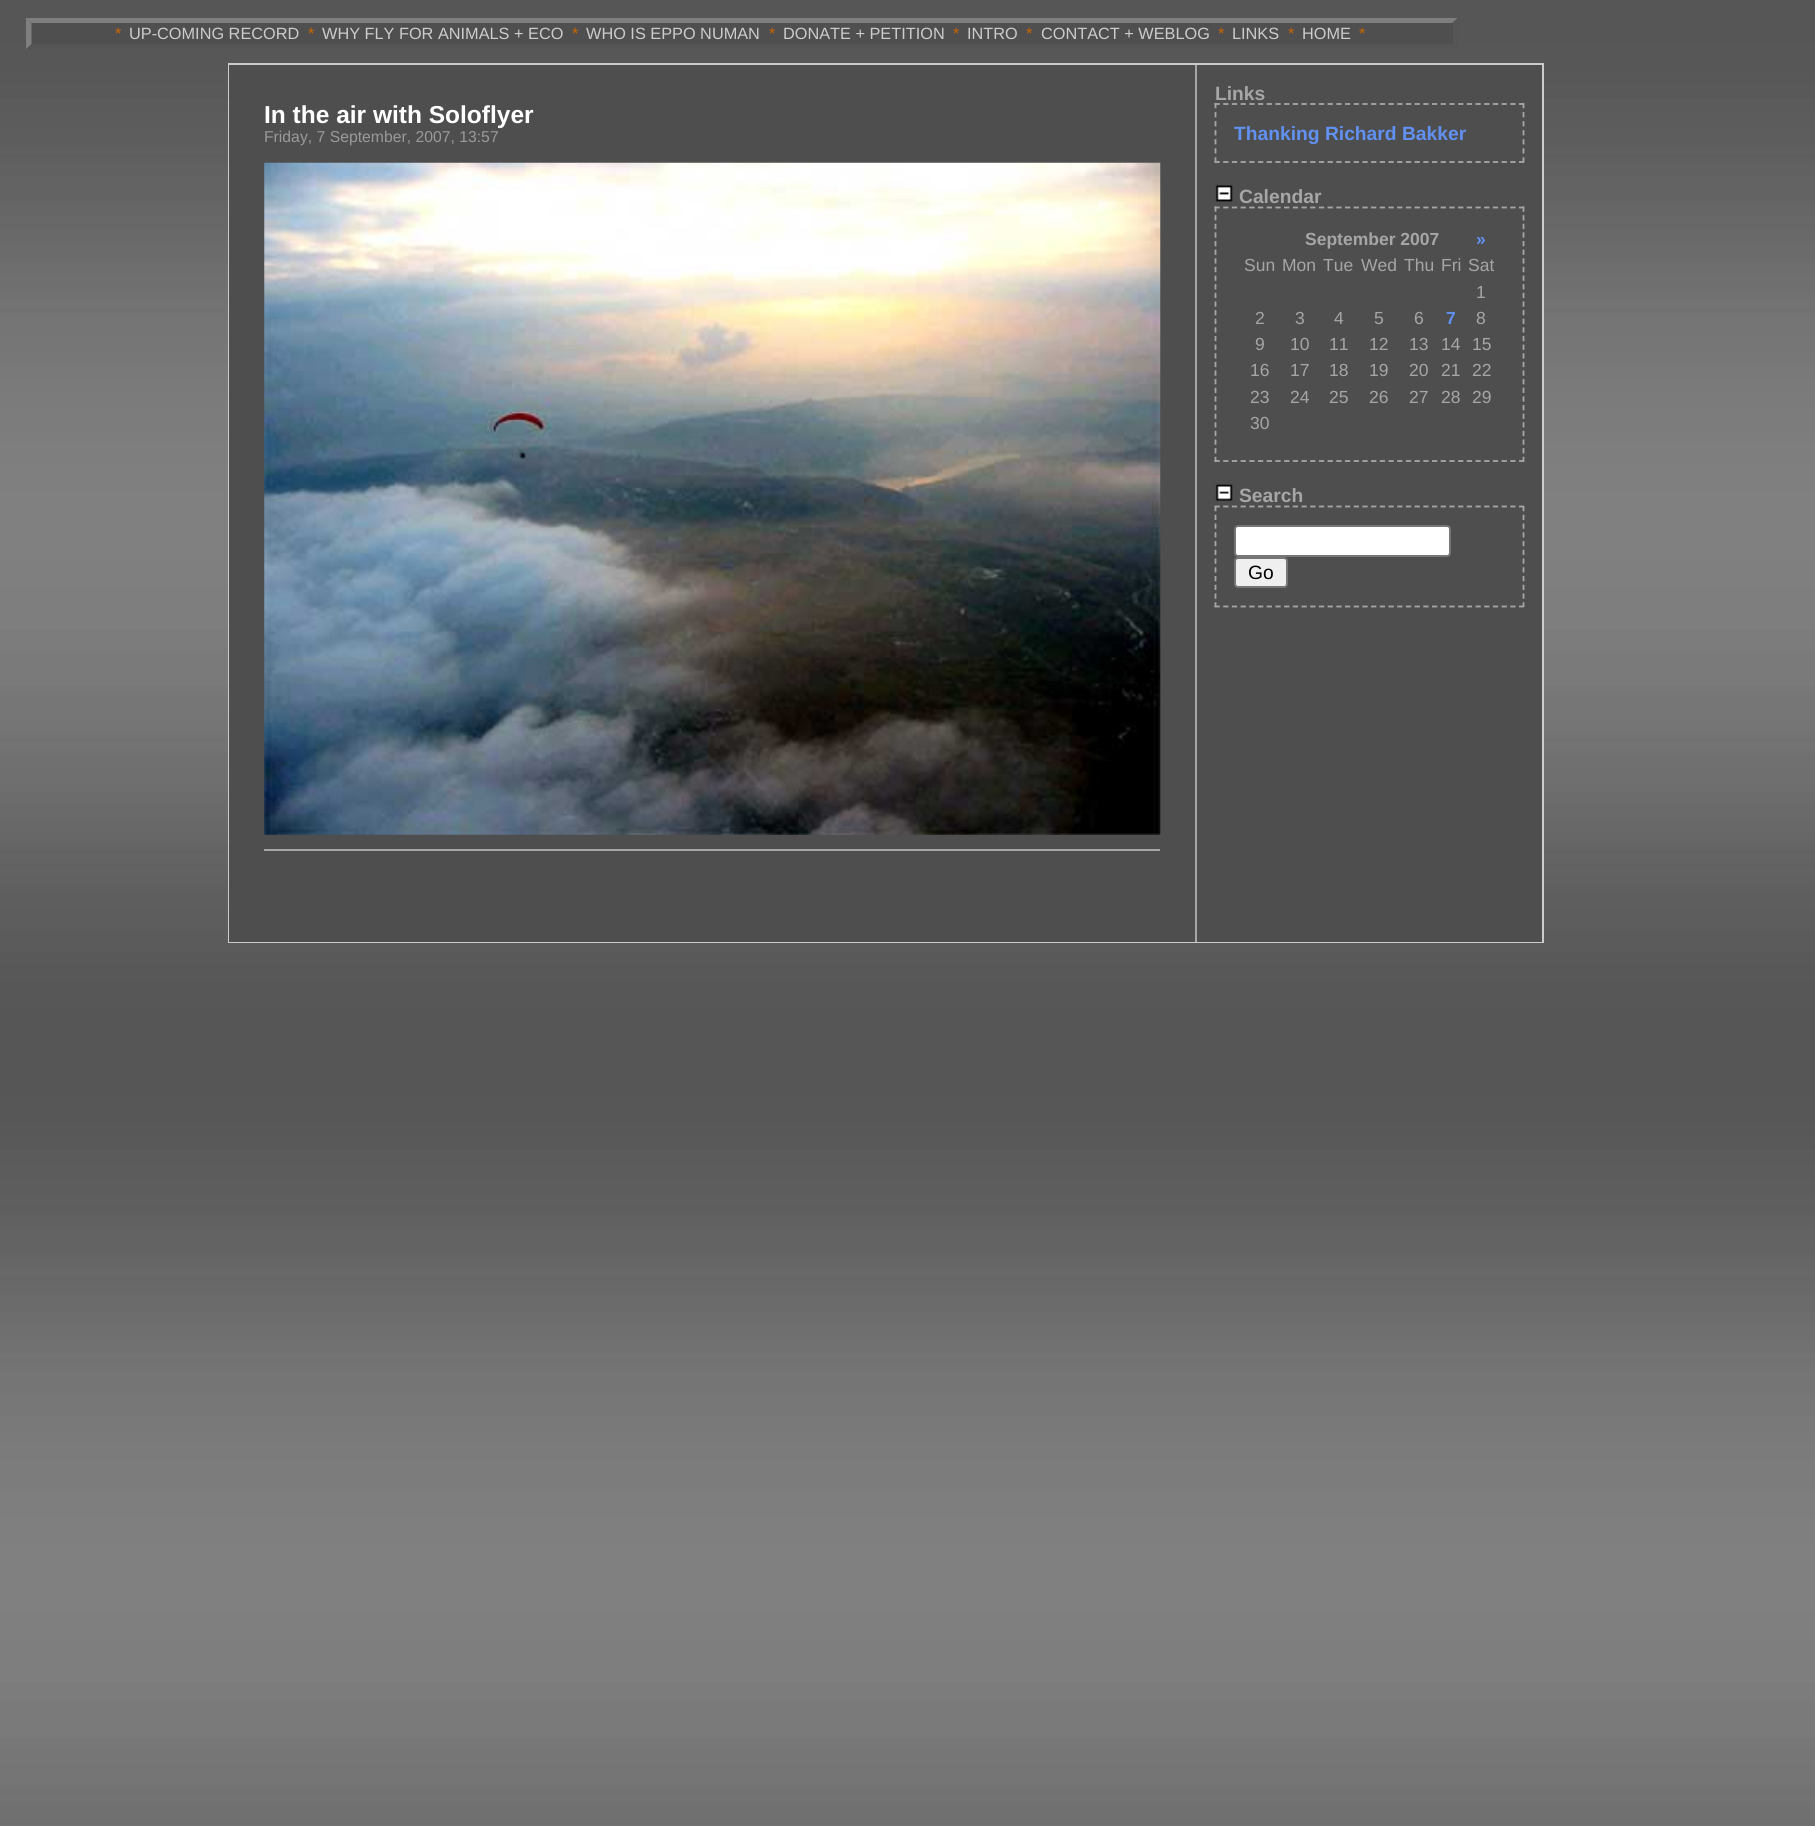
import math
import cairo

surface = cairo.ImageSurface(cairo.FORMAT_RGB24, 1815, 1826)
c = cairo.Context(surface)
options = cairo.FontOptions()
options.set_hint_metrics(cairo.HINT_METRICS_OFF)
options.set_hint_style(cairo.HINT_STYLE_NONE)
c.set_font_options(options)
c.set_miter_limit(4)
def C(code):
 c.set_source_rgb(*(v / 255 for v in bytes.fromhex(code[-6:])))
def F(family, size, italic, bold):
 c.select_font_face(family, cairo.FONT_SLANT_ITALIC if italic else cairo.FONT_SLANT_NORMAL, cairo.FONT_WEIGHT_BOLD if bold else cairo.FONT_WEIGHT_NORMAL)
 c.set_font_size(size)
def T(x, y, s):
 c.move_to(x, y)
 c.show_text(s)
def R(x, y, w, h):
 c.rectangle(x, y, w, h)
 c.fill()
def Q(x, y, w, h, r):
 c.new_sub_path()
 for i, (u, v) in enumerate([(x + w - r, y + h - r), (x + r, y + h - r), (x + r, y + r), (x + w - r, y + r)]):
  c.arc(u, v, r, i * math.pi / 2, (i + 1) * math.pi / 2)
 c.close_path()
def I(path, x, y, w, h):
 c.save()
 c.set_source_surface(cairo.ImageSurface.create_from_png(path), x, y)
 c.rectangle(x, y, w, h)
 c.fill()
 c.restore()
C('ffffff')
c.paint()
I('1.png',0,0,1815,1826)
C('4f4f4f')
R(26,18,1432,31)
C('7f7f7f')
c.new_path()
c.move_to(26,18)
c.line_to(1458,18)
c.line_to(1452,23)
c.line_to(32,23)
c.close_path()
c.fill()
C('555555')
c.new_path()
c.move_to(1458,17.5)
c.line_to(1458,49)
c.line_to(1452.5,44)
c.line_to(1452.5,23)
c.close_path()
c.fill()
c.new_path()
c.move_to(1458,49)
c.line_to(26,49)
c.line_to(32,44)
c.line_to(1452,44)
c.close_path()
c.fill()
C('7f7f7f')
c.new_path()
c.move_to(26,49)
c.line_to(26,17.5)
c.line_to(31.5,23)
c.line_to(31.5,44)
c.close_path()
c.fill()
F('Liberation Sans',16.3,0,0)
C('cc6600')
T(115,39,'*')
C('cccccc')
T(129,39,'UP-COMING RECORD')
C('cc6600')
T(308,39,'*')
C('cccccc')
T(322,39,'WHY FLY FOR ANIMALS + ECO')
C('cc6600')
T(572,39,'*')
C('cccccc')
T(586,39,'WHO IS EPPO NUMAN')
C('cc6600')
T(769,39,'*')
C('cccccc')
T(783,39,'DONATE + PETITION')
C('cc6600')
T(953,39,'*')
C('cccccc')
T(967,39,'INTRO')
C('cc6600')
T(1026,39,'*')
C('cccccc')
T(1041,39,'CONTACT + WEBLOG')
C('cc6600')
T(1218,39,'*')
C('cccccc')
T(1232,39,'LINKS')
C('cc6600')
T(1288,39,'*')
C('cccccc')
T(1302,39,'HOME')
C('4f4f4f')
R(1452,23,1,21)
C('cc6600')
T(1359,39,'*')
c.rectangle(229,64,1314,878)
C('cccccc')
c.stroke()
C('4e4e4e')
R(229,65,966,877)
F('Liberation Sans',24.5,0,1)
C('ffffff')
T(264,123,'In the air with Soloflyer')
F('Liberation Sans',15.75,0,0)
C('999999')
T(264,142,'Friday, 7 September, 2007, 13:57')
I('2.png',264,162,897,673)
C('a6a6a6')
R(264,849,896,2)
C('4e4e4e')
R(1197,65,345,877)
C('a6a6a6')
R(1195,65,2,877)
F('Liberation Sans',19.25,0,1)
T(1215,100,'Links')
c.new_path()
c.move_to(1214.5,104)
c.line_to(1524,104)
c.set_line_width(1.8)
c.set_dash([5.25,3.45])
c.stroke()
c.new_path()
c.move_to(1523.5,103)
c.line_to(1523.5,163)
c.set_dash([5.25,3.8])
c.stroke()
c.new_path()
c.move_to(1214.5,162)
c.line_to(1524,162)
c.set_dash([5.25,3.45])
c.stroke()
c.new_path()
c.move_to(1215.5,103)
c.line_to(1215.5,163)
c.set_dash([5.25,3.8])
c.stroke()
C('6191f2')
T(1234,140,'Thanking Richard Bakker')
I('3.png',1215,185,18,17)
C('a6a6a6')
T(1239,203,'Calendar')
c.new_path()
c.move_to(1214.5,207.5)
c.line_to(1524,207.5)
c.set_dash([5.25,3.45])
c.stroke()
c.new_path()
c.move_to(1523.5,206.5)
c.line_to(1523.5,462)
c.set_dash([5.25,3.38])
c.stroke()
c.new_path()
c.move_to(1214.5,461)
c.line_to(1524,461)
c.set_dash([5.25,3.45])
c.stroke()
c.new_path()
c.move_to(1215.5,206.5)
c.line_to(1215.5,462)
c.set_dash([5.25,3.38])
c.stroke()
F('Liberation Sans',17.5,0,1)
T(1305,245,'September 2007')
C('6191f2')
T(1476,245,'»')
F('Liberation Sans',17.5,0,0)
C('a6a6a6')
T(1244,271,'Sun')
T(1282,271,'Mon')
T(1323,271,'Tue')
T(1361,271,'Wed')
T(1404,271,'Thu')
T(1441,271,'Fri')
T(1468,271,'Sat')
T(1476,298,'1')
T(1255,324,'2')
T(1295,324,'3')
T(1334,324,'4')
T(1374,324,'5')
T(1414,324,'6')
F('Liberation Sans',17.5,0,1)
C('6191f2')
T(1446,324,'7')
F('Liberation Sans',17.5,0,0)
C('a6a6a6')
T(1476,324,'8')
T(1255,350,'9')
T(1290,350,'10')
T(1329,350,'11')
T(1369,350,'12')
T(1409,350,'13')
T(1441,350,'14')
T(1472,350,'15')
T(1250,376,'16')
T(1290,376,'17')
T(1329,376,'18')
T(1369,376,'19')
T(1409,376,'20')
T(1441,376,'21')
T(1472,376,'22')
T(1250,403,'23')
T(1290,403,'24')
T(1329,403,'25')
T(1369,403,'26')
T(1409,403,'27')
T(1441,403,'28')
T(1472,403,'29')
T(1250,429,'30')
I('4.png',1215,484,18,17)
F('Liberation Sans',19.25,0,1)
T(1239,502,'Search')
c.new_path()
c.move_to(1214.5,506.5)
c.line_to(1524,506.5)
c.set_dash([5.25,3.45])
c.stroke()
c.new_path()
c.move_to(1523.5,506)
c.line_to(1523.5,607)
c.set_dash([5.25,3.5])
c.stroke()
c.new_path()
c.move_to(1214.5,606.5)
c.line_to(1524,606.5)
c.set_dash([5.25,3.45])
c.stroke()
c.new_path()
c.move_to(1215.5,506)
c.line_to(1215.5,607)
c.set_dash([5.25,3.5])
c.stroke()
C('ffffff')
Q(1235,526,215,30,3)
c.fill_preserve()
C('767676')
c.set_line_width(2)
c.set_dash([])
c.stroke()
C('efefef')
Q(1235,558,52,29,3)
c.fill_preserve()
C('767676')
c.stroke()
F('Liberation Sans',19.25,0,0)
C('000000')
T(1248,579,'Go')
surface.write_to_png('o.png')
